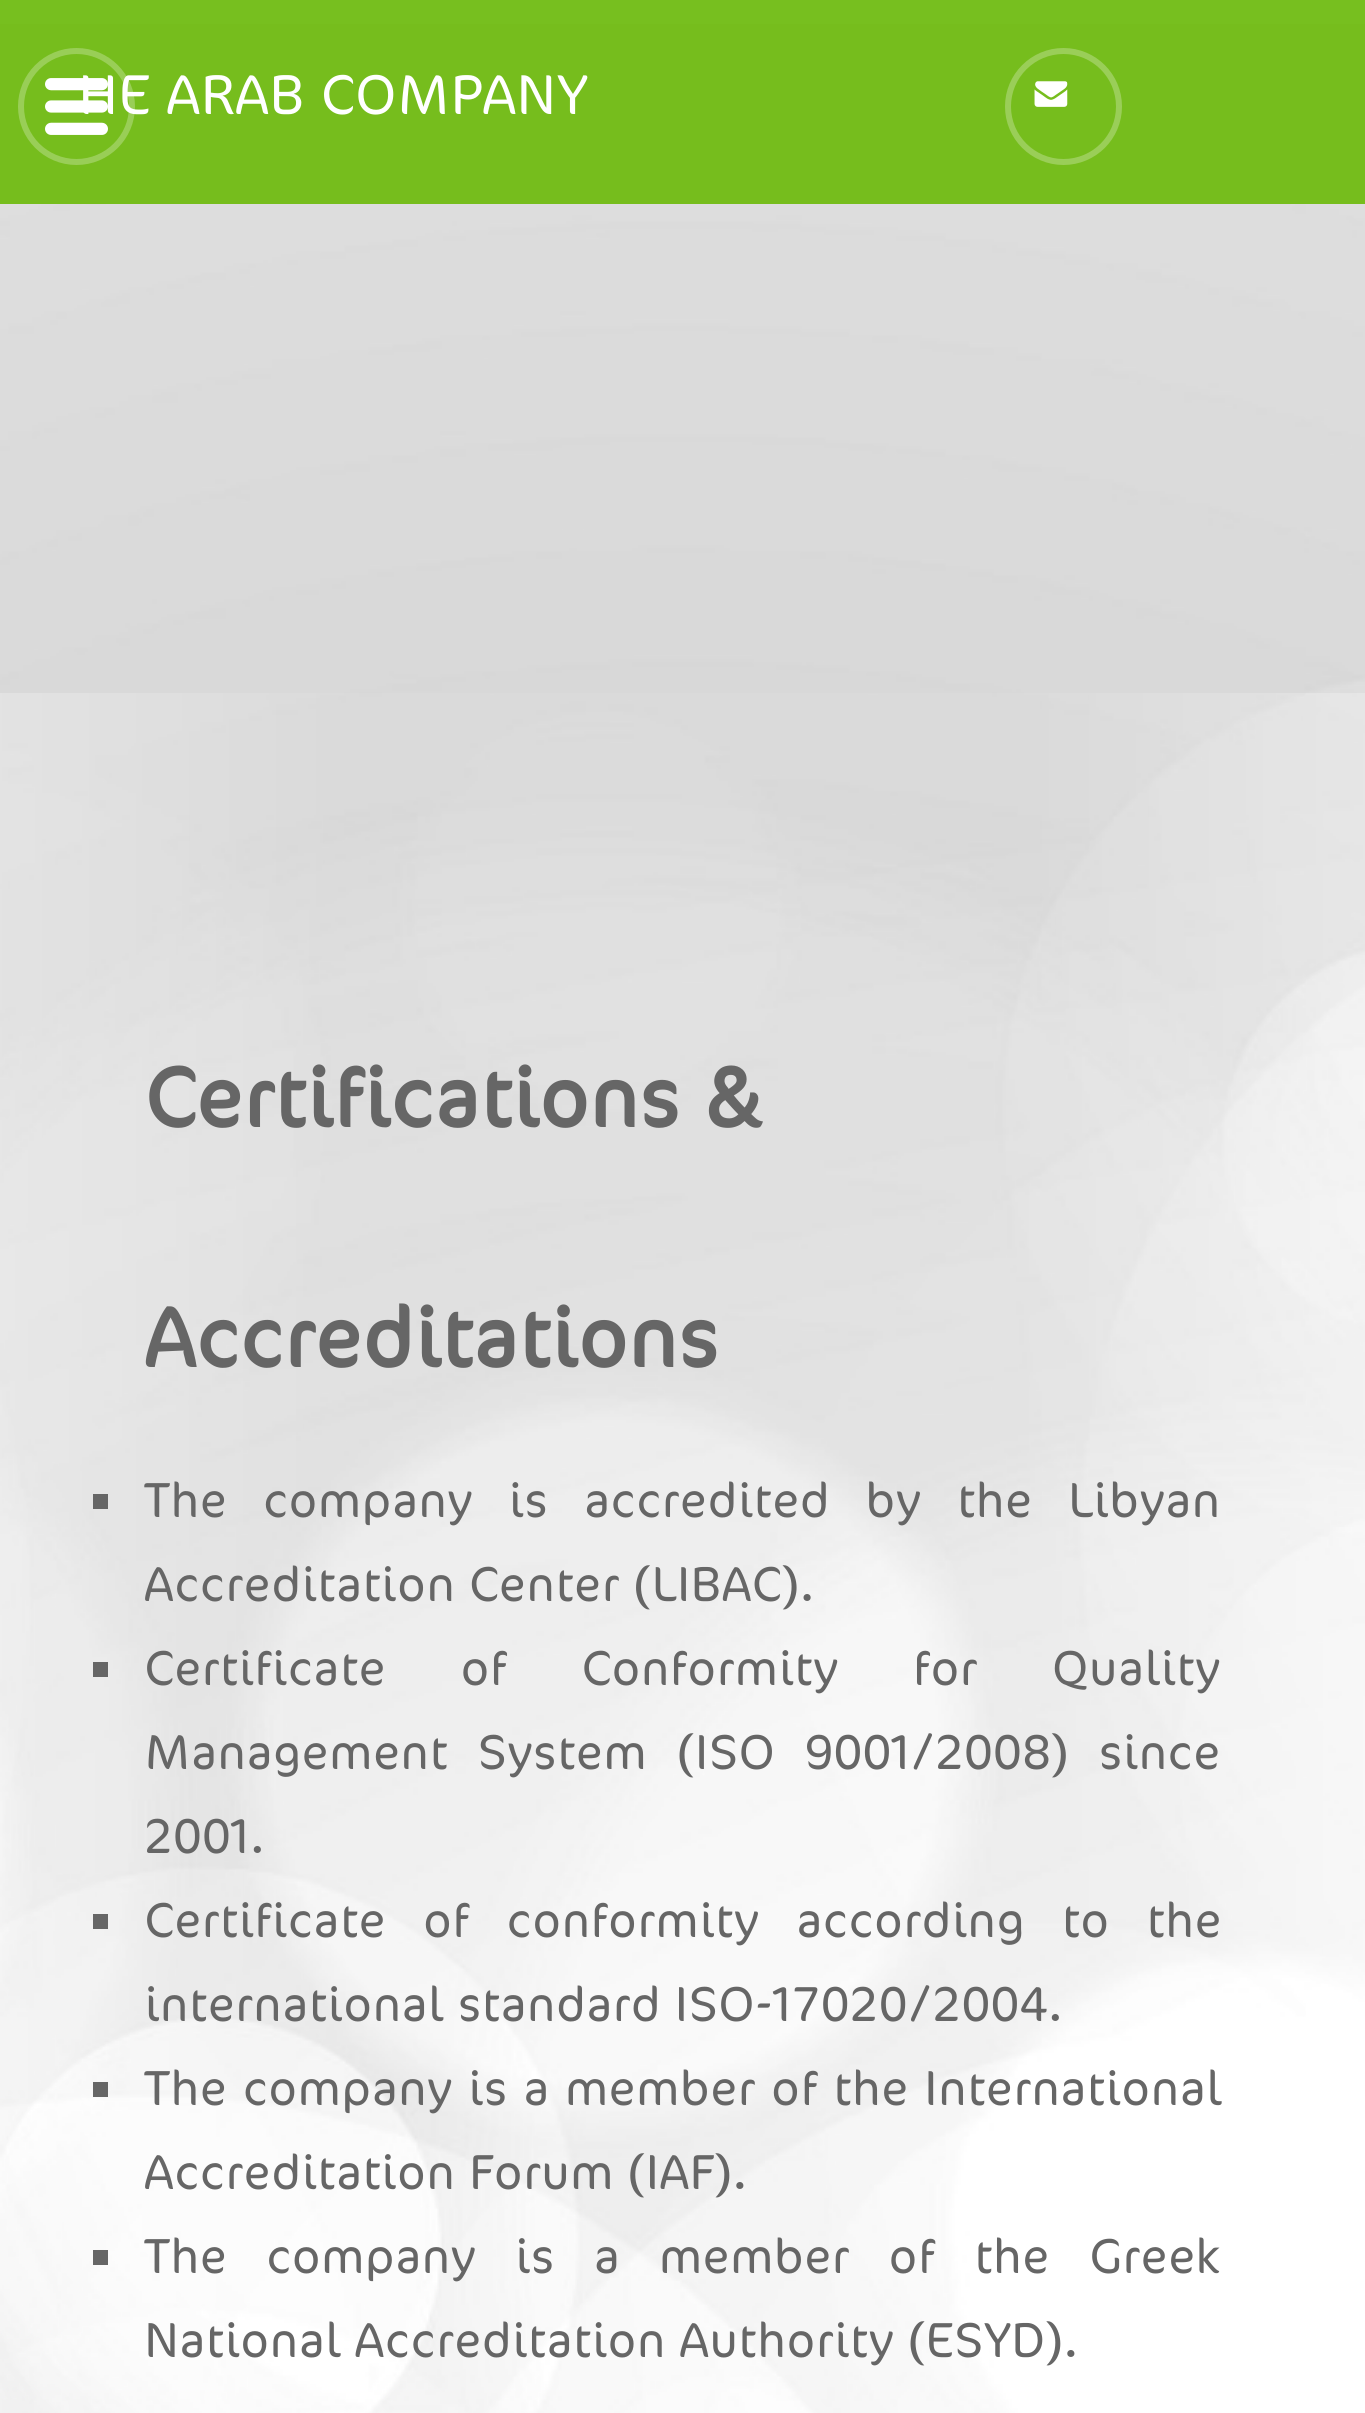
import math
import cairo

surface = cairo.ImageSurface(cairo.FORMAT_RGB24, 1365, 2413)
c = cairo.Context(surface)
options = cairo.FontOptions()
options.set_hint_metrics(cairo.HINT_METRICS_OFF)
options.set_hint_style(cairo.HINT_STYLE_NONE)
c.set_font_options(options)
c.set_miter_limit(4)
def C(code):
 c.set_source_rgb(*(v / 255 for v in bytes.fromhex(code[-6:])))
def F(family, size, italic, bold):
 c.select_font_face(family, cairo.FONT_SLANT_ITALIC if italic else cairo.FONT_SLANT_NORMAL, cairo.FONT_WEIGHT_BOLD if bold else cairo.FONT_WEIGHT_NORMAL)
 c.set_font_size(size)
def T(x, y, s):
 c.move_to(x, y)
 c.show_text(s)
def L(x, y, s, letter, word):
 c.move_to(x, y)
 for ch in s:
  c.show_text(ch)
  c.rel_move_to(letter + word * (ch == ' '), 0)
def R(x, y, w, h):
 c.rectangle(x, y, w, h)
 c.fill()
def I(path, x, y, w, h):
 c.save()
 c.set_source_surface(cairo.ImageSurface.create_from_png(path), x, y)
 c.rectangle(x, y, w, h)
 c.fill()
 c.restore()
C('ffffff')
c.paint()
I('1.png',0,204,1365,2209)
C('77bf1f')
R(0,0,1365,24)
C('76bd1d')
R(0,24,1365,180)
F('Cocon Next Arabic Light',64,0,0)
C('ffffff')
T(78,114,'HE ARAB COMPANY')
c.new_path()
c.arc(76.5,106.5,55.5,0,2 * math.pi)
c.set_source_rgba(1,1,1,0.26)
c.set_line_width(6)
c.stroke()
I('2.png',45,78,63,57)
c.arc(1063.5,106.5,55.5,0,2 * math.pi)
C('9ace58')
c.stroke()
I('3.png',1034,81,34,26)
F('Cocon Next Arabic',96,0,1)
C('666666')
T(144,1127,'Certifications &')
T(144,1367,'Accreditations')
R(93,1494,15,15)
F('Cocon Next Arabic Light',56,0,0)
L(144,1517,'The company is accredited by the Libyan',0,21.75)
T(144,1601,'Accreditation Center (LIBAC).')
R(93,1662,15,15)
L(144,1685,'Certificate of Conformity for Quality',0,60.5)
L(144,1769,'Management System (ISO 9001/2008) since',0,16)
T(144,1853,'2001.')
R(93,1914,15,15)
L(144,1937,'Certificate of conformity according to the',0,23)
T(144,2021,'international standard ISO-17020/2004.')
R(93,2082,15,15)
L(144,2105,'The company is a member of the International',0,1.5)
T(144,2189,'Accreditation Forum (IAF).')
R(93,2250,15,15)
L(144,2273,'The company is a member of the Greek',0,25)
T(144,2357,'National Accreditation Authority (ESYD).')
surface.write_to_png('o.png')
